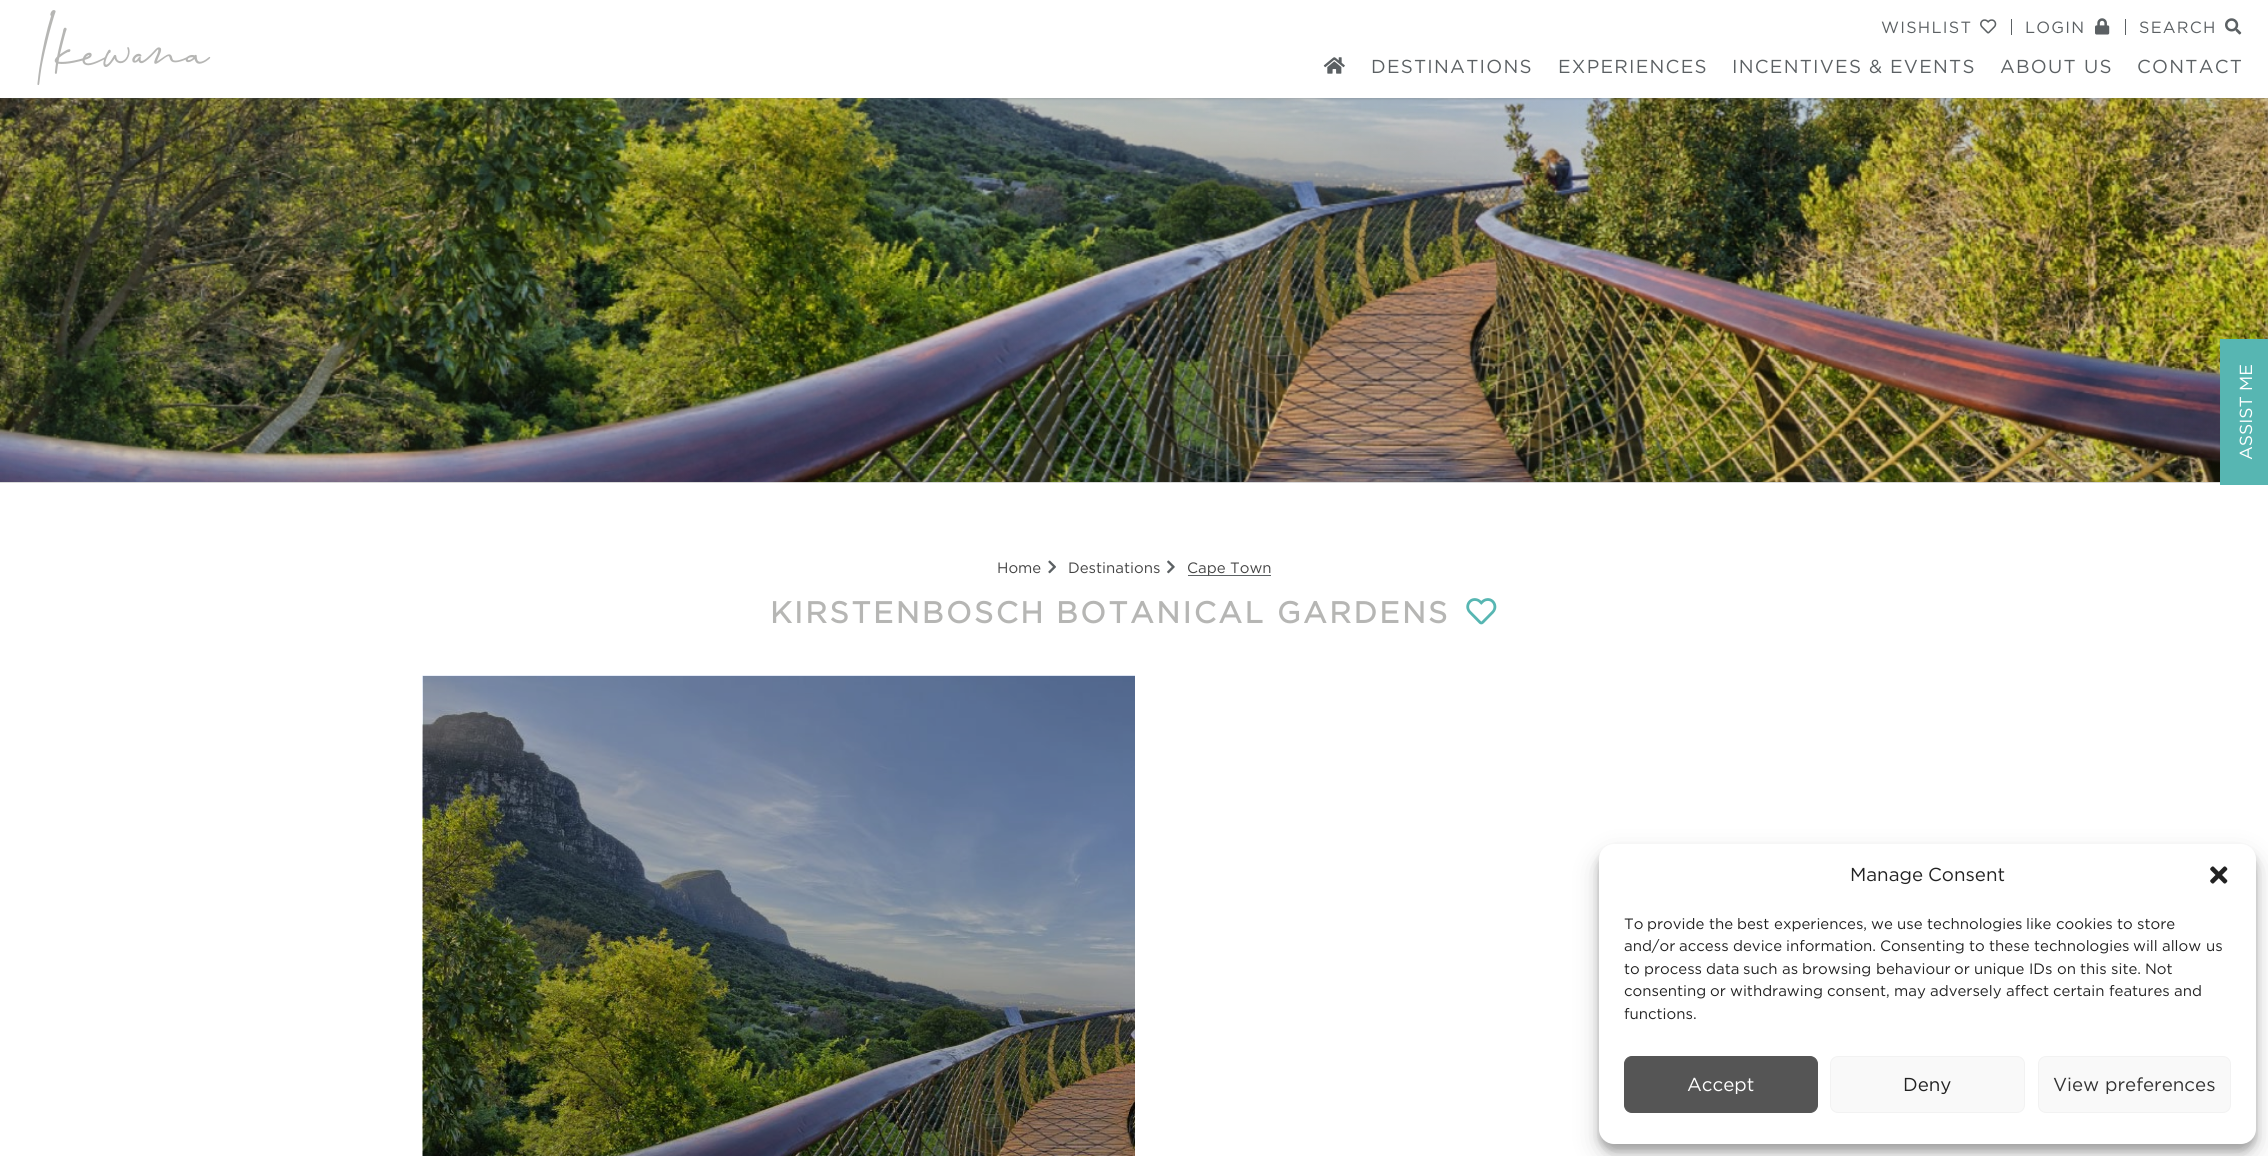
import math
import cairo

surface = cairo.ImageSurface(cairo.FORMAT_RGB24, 2268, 1156)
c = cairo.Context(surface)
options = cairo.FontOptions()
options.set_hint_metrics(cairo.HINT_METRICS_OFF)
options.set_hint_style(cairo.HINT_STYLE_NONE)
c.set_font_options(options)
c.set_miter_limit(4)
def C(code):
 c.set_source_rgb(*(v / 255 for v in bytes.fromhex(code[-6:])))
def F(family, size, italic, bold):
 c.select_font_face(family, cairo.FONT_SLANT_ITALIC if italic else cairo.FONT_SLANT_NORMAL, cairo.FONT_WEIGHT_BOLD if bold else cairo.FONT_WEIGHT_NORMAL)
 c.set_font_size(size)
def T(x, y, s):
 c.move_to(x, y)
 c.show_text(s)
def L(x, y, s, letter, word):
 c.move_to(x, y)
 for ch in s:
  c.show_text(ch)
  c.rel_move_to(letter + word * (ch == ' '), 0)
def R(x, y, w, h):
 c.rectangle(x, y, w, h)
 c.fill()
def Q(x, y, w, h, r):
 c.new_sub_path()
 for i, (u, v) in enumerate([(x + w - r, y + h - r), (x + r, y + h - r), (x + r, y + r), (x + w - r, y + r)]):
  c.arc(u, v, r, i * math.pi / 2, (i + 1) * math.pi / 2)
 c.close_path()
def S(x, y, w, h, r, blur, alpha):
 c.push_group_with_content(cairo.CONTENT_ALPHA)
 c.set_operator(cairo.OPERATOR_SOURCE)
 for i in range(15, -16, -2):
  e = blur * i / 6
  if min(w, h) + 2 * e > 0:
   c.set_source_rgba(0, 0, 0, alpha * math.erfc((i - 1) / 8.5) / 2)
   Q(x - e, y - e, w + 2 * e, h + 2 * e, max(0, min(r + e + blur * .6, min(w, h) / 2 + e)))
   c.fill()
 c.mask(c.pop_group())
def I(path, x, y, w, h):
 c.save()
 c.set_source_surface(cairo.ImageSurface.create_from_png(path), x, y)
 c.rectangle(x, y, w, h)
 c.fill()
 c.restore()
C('ffffff')
c.paint()
I('6.png',0,98,2268,384)
C('5b6063')
S(1,1,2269,98,0,1,.25)
C('ffffff')
R(0,0,2268,98)
I('1.png',37,10,174,75)
C('5b6063')
R(2011,19,1,16)
F('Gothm',16.25,0,0)
L(1881,33,'WISHLIST',1.25,0)
I('2.png',1980,19,17,15)
R(2125,19,1,16)
L(2025,33,'LOGIN',1.25,0)
I('3.png',2095,18,15,17)
L(2139,33,'SEARCH',1.25,0)
I('4.png',2225,18,17,17)
I('5.png',1323,57,22,17)
F('Gothm',18.75,0,0)
L(1371,73,'DESTINATIONS',1.25,0)
L(1558,73,'EXPERIENCES',1.25,0)
L(1732,73,'INCENTIVES',1.25,0)
L(1869,73,'&',1.25,0)
L(1890,73,'EVENTS',1.25,0)
L(2000,73,'ABOUT',1.25,0)
L(2084,73,'US',1.25,0)
L(2137,73,'CONTACT',1.25,0)
C('dadada')
R(0,482,2220,1)
C('57b6b2')
R(2220,339,48,146)
F('Gothm',17.5,0,0)
C('ffffff')
c.save()
c.translate(2252,391)
c.rotate(-90 * math.pi / 180)
T(0,0,'ME')
c.restore()
c.save()
c.translate(2252,460)
c.rotate(-90 * math.pi / 180)
T(0,0,'ASSIST')
c.restore()
F('Gothm',15,0,0)
C('444444')
T(997,573,'Home')
I('7.png',1048,560,8,14)
T(1068,573,'Destinations')
I('8.png',1167,560,8,14)
C('5b6063')
R(1188,575,83,1)
C('444444')
T(1187,573,'Cape')
T(1230,573,'Town')
F('Gothm',30,0,1)
C('b6b6b4')
L(770,623,'KIRSTENBOSCH',2.5,0)
L(1056,623,'BOTANICAL',2.5,0)
L(1277,623,'GARDENS',2.5,0)
I('9.png',1466,598,31,27)
I('10.png',422,675,713,481)
C('000000')
S(1599,851,657,300,15,4,.23)
S(1599,856,657,300,15,12.5,.19)
C('ffffff')
Q(1599,844,657,300,15)
c.fill()
F('Gothm',18.75,0,0)
C('222222')
T(1850,881,'Manage')
T(1928,881,'Consent')
I('11.png',2210,866,18,18)
F('Gothm',15,0,0)
T(1624,929,'To')
T(1647,929,'provide')
T(1709,929,'the')
T(1737,929,'best')
T(1774,929,'experiences,')
T(1871,929,'we')
T(1897,929,'use')
T(1927,929,'technologies')
T(2026,929,'like')
T(2056,929,'cookies')
T(2117,929,'to')
T(2137,929,'store')
T(1624,951,'and/or')
T(1679,951,'access')
T(1733,951,'device')
T(1786,951,'information.')
T(1880,951,'Consenting')
T(1969,951,'to')
T(1989,951,'these')
T(2034,951,'technologies')
T(2133,951,'will')
T(2162,951,'allow')
T(2206,951,'us')
T(1624,974,'to')
T(1644,974,'process')
T(1706,974,'data')
T(1743,974,'such')
T(1782,974,'as')
T(1802,974,'browsing')
T(1876,974,'behaviour')
T(1954,974,'or')
T(1974,974,'unique')
T(2029,974,'IDs')
T(2057,974,'on')
T(2080,974,'this')
T(2111,974,'site.')
T(2145,974,'Not')
T(1624,996,'consenting')
T(1710,996,'or')
T(1730,996,'withdrawing')
T(1827,996,'consent,')
T(1894,996,'may')
T(1930,996,'adversely')
T(2006,996,'affect')
T(2053,996,'certain')
T(2109,996,'features')
T(2174,996,'and')
T(1624,1019,'functions.')
C('555555')
Q(1624.5,1056.5,193,56,7.5)
c.fill_preserve()
c.set_line_width(1)
c.stroke()
F('Gothm',18.75,0,0)
C('ffffff')
T(1687,1091,'Accept')
C('f9f9f9')
Q(1830.5,1056.5,194,56,7.5)
c.fill_preserve()
C('f2f2f2')
c.stroke()
C('222222')
T(1903,1091,'Deny')
C('f9f9f9')
Q(2038.5,1056.5,192,56,7.5)
c.fill_preserve()
C('f2f2f2')
c.stroke()
C('333333')
T(2053,1091,'View')
T(2105,1091,'preferences')
surface.write_to_png('o.png')
